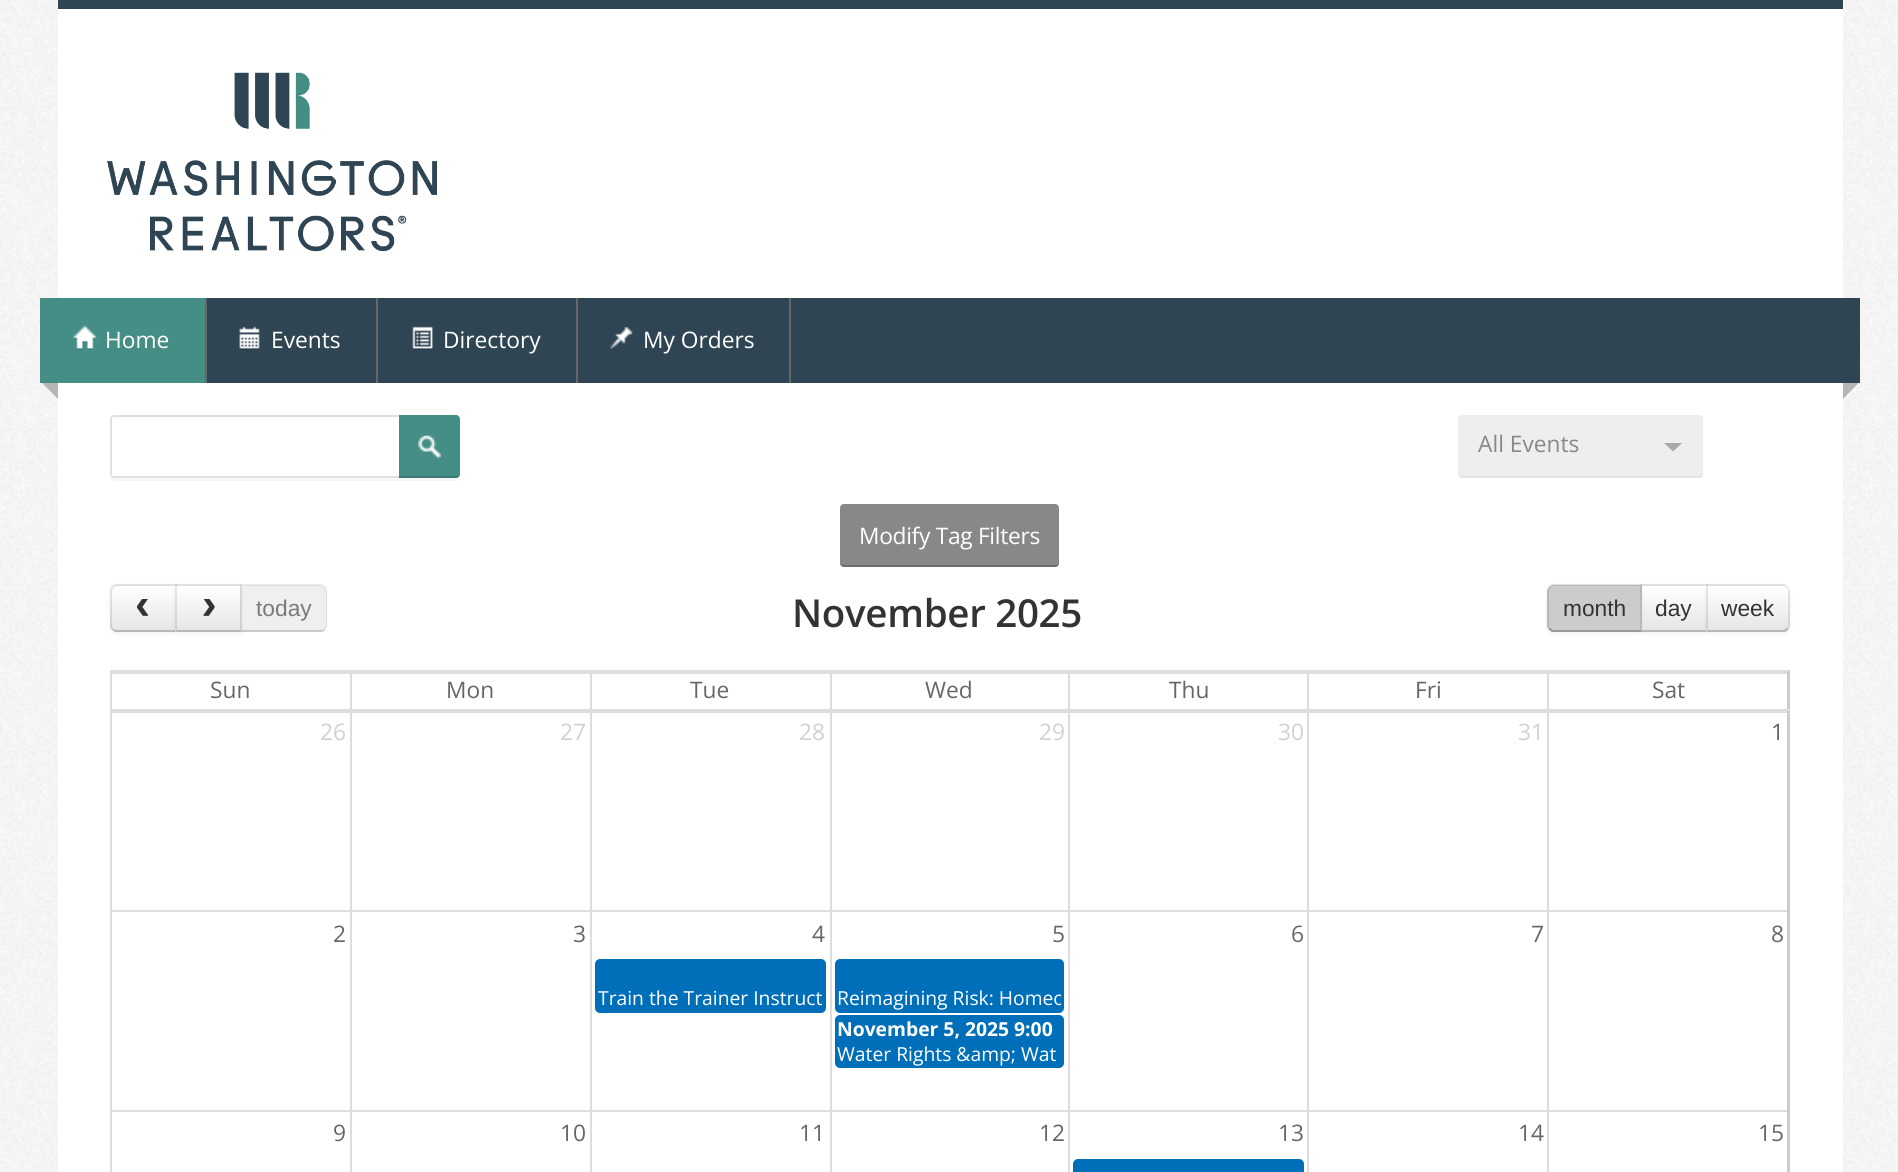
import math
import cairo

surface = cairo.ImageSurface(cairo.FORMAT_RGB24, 1898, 1172)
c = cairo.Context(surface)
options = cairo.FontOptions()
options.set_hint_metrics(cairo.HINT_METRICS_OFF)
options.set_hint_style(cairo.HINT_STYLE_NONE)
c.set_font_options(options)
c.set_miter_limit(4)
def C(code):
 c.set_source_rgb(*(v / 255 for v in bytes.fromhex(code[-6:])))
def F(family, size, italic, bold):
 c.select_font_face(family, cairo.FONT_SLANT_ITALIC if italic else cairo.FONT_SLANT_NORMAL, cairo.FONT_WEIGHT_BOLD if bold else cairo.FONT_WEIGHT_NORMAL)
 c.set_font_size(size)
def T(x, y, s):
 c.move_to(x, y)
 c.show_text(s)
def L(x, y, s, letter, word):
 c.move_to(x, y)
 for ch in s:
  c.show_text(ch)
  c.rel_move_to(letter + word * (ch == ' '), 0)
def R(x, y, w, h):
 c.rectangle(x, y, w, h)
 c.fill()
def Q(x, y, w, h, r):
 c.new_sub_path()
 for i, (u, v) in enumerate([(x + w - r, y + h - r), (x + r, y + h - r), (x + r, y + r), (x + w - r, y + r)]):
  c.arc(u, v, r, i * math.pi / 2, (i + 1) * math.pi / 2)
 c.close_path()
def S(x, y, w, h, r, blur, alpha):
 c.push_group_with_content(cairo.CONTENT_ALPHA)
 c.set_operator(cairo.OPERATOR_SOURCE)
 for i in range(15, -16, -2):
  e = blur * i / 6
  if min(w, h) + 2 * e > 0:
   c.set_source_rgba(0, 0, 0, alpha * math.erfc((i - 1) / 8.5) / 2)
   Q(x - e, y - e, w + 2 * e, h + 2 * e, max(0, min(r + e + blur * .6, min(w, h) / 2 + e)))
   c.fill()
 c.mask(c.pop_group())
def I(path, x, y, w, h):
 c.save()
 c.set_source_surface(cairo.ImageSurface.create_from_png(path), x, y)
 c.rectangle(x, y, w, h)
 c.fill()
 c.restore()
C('ffffff')
c.paint()
I('1.png',0,0,1898,1172)
C('ffffff')
R(58,9,1785,1163)
C('2f4554')
R(58,0,1785,9)
I('2.png',107,72,330,180)
R(207,298,1653,85)
C('448e85')
R(40,298,165,85)
C('666666')
R(205,298,2,85)
I('3.png',73,325,24,25)
F('Open Sans',22.75,0,0)
C('ffffff')
T(105,348,'Home')
C('666666')
R(376,298,2,85)
I('4.png',239,326,21,24)
C('ffffff')
T(271,348,'Events')
C('666666')
R(576,298,2,85)
I('5.png',412,326,21,24)
C('ffffff')
T(443,348,'Directory')
C('666666')
R(789,298,2,85)
I('6.png',610,326,23,24)
C('ffffff')
T(643,348,'My Orders')
c.set_source_rgba(0.533,0.533,0.533,0.58)
c.new_path()
c.move_to(58,383)
c.line_to(58,399)
c.line_to(42,383)
c.close_path()
c.fill()
c.new_path()
c.move_to(1843,383)
c.line_to(1858.5,383)
c.line_to(1843,399)
c.close_path()
c.fill()
C('f7f7f7')
c.new_path()
c.move_to(110,421)
c.line_to(110,477)
c.curve_to(110,479,112,481,114,481)
c.line_to(456,481)
c.curve_to(458,481,460,479,460,477)
c.line_to(460,476)
c.curve_to(459,477,458,478,457,478)
c.line_to(114,478)
c.curve_to(112,478,110,476,110,474)
c.close_path()
c.fill()
Q(111,416,348,61,3)
C('e0e0e0')
c.stroke()
C('448e85')
c.new_path()
c.move_to(399,415)
c.line_to(456,415)
c.curve_to(458,415,460,417,460,419)
c.line_to(460,474)
c.curve_to(460,476,458,478,456,478)
c.line_to(399,478)
c.close_path()
c.fill()
I('7.png',418,435,23,24)
c.set_source_rgba(0,0,0,0.15)
c.new_path()
c.move_to(399,476)
c.line_to(399,478)
c.line_to(456,478)
c.curve_to(458,478,460,476,460,474)
c.line_to(460,472)
c.curve_to(460,474,459,476,457,476)
c.close_path()
c.fill()
C('eeeeee')
Q(1458,415,245,63,4)
c.fill()
c.set_source_rgba(0,0,0,0.05)
c.new_path()
c.move_to(1458,472)
c.line_to(1458,474)
c.curve_to(1458,476,1460,478,1462,478)
c.line_to(1699,478)
c.curve_to(1701,478,1703,476,1703,474)
c.line_to(1703,472)
c.curve_to(1703,474,1701,476,1699,476)
c.line_to(1461,476)
c.curve_to(1459,476,1458,474,1458,472)
c.close_path()
c.fill()
C('888888')
T(1478,452,'All Events')
C('aaaaaa')
c.new_path()
c.move_to(1664,443)
c.line_to(1682,443)
c.line_to(1673,451.5)
c.close_path()
c.fill()
C('888888')
Q(840,504,219,63,4)
c.fill()
c.set_source_rgba(0,0,0,0.2)
c.new_path()
c.move_to(840,562)
c.curve_to(840,565,841,567,844,567)
c.line_to(1057,567)
c.curve_to(1059,566,1059,564,1059,562)
c.curve_to(1059,564,1057,565,1055,565)
c.line_to(844,565)
c.curve_to(842,565,840,564,840,562)
c.close_path()
c.fill()
C('ffffff')
L(859,544,'Modify Tag Filters',-.3,0)
C('000000')
S(110,586,67,48,7,2,.05)
C('f5f5f5')
c.new_path()
c.move_to(117,585)
c.line_to(177,585)
c.line_to(177,632)
c.line_to(117,632)
c.curve_to(113,632,110,629,110,625)
c.line_to(110,592)
c.curve_to(110,588,113,585,117,585)
c.close_path()
c.fill()
c.save()
c.new_path()
c.move_to(117,585)
c.line_to(177,585)
c.line_to(177,632)
c.line_to(117,632)
c.curve_to(113,632,110,629,110,625)
c.line_to(110,592)
c.curve_to(110,588,113,585,117,585)
c.close_path()
c.clip()
gradient = cairo.LinearGradient(144,586,144,630)
gradient.add_color_stop_rgba(0,1,1,1,1)
gradient.add_color_stop_rgba(1,0.902,0.902,0.902,1)
c.set_source(gradient)
R(110,586,65,44)
c.restore()
c.set_source_rgba(0,0,0,0.1)
c.new_path()
c.move_to(117,586)
c.curve_to(116,586,114,587,113,588)
c.line_to(112,586)
c.line_to(115,584)
c.line_to(177,584)
c.line_to(175,586)
c.close_path()
c.fill()
c.new_path()
c.move_to(177,584)
c.line_to(175,586)
c.line_to(175,630)
c.line_to(177,632)
c.close_path()
c.fill()
c.set_source_rgba(0,0,0,0.25)
c.new_path()
c.move_to(177,632)
c.line_to(115,632)
c.line_to(112,630)
c.line_to(113,629)
c.curve_to(114,630,116,630,117,630)
c.line_to(175,630)
c.close_path()
c.fill()
c.set_source_rgba(0,0,0,0.1)
c.new_path()
c.move_to(110,590)
c.line_to(112,586)
c.line_to(113,588)
c.curve_to(113,589,112,590,112,592)
c.line_to(112,625)
c.curve_to(112,626,112,628,113,629)
c.line_to(112,630)
c.line_to(110,627)
c.close_path()
c.fill()
c.save()
c.rectangle(130,599,28,22)
c.clip()
F('Liberation Mono',46,0,1)
C('333333')
T(129,619,'‹')
c.restore()
C('000000')
S(175,586,67,48,0,2,.05)
C('f5f5f5')
R(175,585,67,47)
gradient = cairo.LinearGradient(208,586,208,630)
gradient.add_color_stop_rgba(0,1,1,1,1)
gradient.add_color_stop_rgba(1,0.902,0.902,0.902,1)
c.set_source(gradient)
R(175,586,67,44)
c.set_source_rgba(0,0,0,0.1)
c.new_path()
c.move_to(175,584)
c.line_to(242,584)
c.line_to(240,586)
c.line_to(177,586)
c.close_path()
c.fill()
c.new_path()
c.move_to(242,584)
c.line_to(242,632)
c.line_to(240,630)
c.line_to(240,586)
c.close_path()
c.fill()
c.set_source_rgba(0,0,0,0.25)
c.new_path()
c.move_to(242,632)
c.line_to(175,632)
c.line_to(177,630)
c.line_to(240,630)
c.close_path()
c.fill()
c.set_source_rgba(0,0,0,0.1)
c.new_path()
c.move_to(175,632)
c.line_to(175,584)
c.line_to(177,586)
c.line_to(177,630)
c.close_path()
c.fill()
c.save()
c.rectangle(194,599,28,22)
c.clip()
F('Liberation Mono',46,0,1)
C('333333')
T(195,619,'›')
c.restore()
c.set_source_rgba(0.902,0.902,0.902,0.65)
c.new_path()
c.move_to(240,585)
c.line_to(320,585)
c.curve_to(324,585,327,588,327,592)
c.line_to(327,625)
c.curve_to(327,629,324,632,320,632)
c.line_to(240,632)
c.close_path()
c.fill()
c.set_source_rgba(0,0,0,0.07)
c.new_path()
c.move_to(242,586)
c.line_to(242,587)
c.line_to(240,584)
c.line_to(322,584)
c.line_to(325,587)
c.line_to(324,588)
c.curve_to(323,587,321,586,320,586)
c.close_path()
c.fill()
c.set_source_rgba(0.349,0.349,0.349,0.1)
c.new_path()
c.move_to(325,587)
c.curve_to(326,588,327,590,327,592)
c.line_to(327,625)
c.curve_to(327,627,326,629,325,630)
c.line_to(324,629)
c.curve_to(325,628,326,626,326,625)
c.line_to(326,592)
c.curve_to(326,590,325,589,324,588)
c.close_path()
c.fill()
c.set_source_rgba(0,0,0,0.16)
c.new_path()
c.move_to(240,632)
c.line_to(242,630)
c.line_to(320,630)
c.curve_to(322,630,323,630,324,629)
c.line_to(325,630)
c.line_to(322,632)
c.close_path()
c.fill()
c.set_source_rgba(0,0,0,0.07)
c.new_path()
c.move_to(240,632)
c.line_to(240,585)
c.line_to(242,587)
c.line_to(242,630)
c.close_path()
c.fill()
F('Liberation Sans',22.75,0,0)
C('7a7a7a')
T(256,616,'today')
F('Open Sans SemiBold',38.5,0,0)
C('333333')
L(792,627,'November 2025',-.3,0)
C('000000')
S(1640,586,68,48,0,2,.05)
C('f5f5f5')
R(1642,585,64,44)
gradient = cairo.LinearGradient(1674,586,1674,630)
gradient.add_color_stop_rgba(0,1,1,1,1)
gradient.add_color_stop_rgba(1,0.902,0.902,0.902,1)
c.set_source(gradient)
R(1642,586,64,44)
c.set_source_rgba(0,0,0,0.1)
c.new_path()
c.move_to(1640,584)
c.line_to(1708,584)
c.line_to(1706,586)
c.line_to(1642,586)
c.close_path()
c.fill()
c.new_path()
c.move_to(1708,584)
c.line_to(1708,632)
c.line_to(1706,630)
c.line_to(1706,586)
c.close_path()
c.fill()
c.set_source_rgba(0,0,0,0.25)
c.new_path()
c.move_to(1708,632)
c.line_to(1640,632)
c.line_to(1642,630)
c.line_to(1706,630)
c.close_path()
c.fill()
c.set_source_rgba(0,0,0,0.1)
c.new_path()
c.move_to(1640,632)
c.line_to(1640,584)
c.line_to(1642,586)
c.line_to(1642,630)
c.close_path()
c.fill()
C('000000')
S(1547,586,95,48,7,2,.05)
C('cccccc')
c.new_path()
c.move_to(1554,585)
c.line_to(1642,585)
c.line_to(1642,632)
c.line_to(1554,632)
c.curve_to(1550,632,1547,629,1547,625)
c.line_to(1547,592)
c.curve_to(1547,588,1550,585,1554,585)
c.close_path()
c.fill()
c.set_source_rgba(0,0,0,0.1)
c.new_path()
c.move_to(1554,586)
c.curve_to(1552,586,1551,587,1550,588)
c.line_to(1549,586)
c.line_to(1552,584)
c.line_to(1642,584)
c.line_to(1640,586)
c.close_path()
c.fill()
c.new_path()
c.move_to(1642,584)
c.line_to(1640,586)
c.line_to(1640,630)
c.line_to(1642,632)
c.close_path()
c.fill()
c.set_source_rgba(0,0,0,0.25)
c.new_path()
c.move_to(1642,632)
c.line_to(1552,632)
c.line_to(1549,630)
c.line_to(1550,628)
c.line_to(1553,630)
c.line_to(1640,630)
c.close_path()
c.fill()
c.set_source_rgba(0,0,0,0.1)
c.new_path()
c.move_to(1547,592)
c.line_to(1547,625)
c.curve_to(1547,627,1548,629,1549,630)
c.line_to(1550,628)
c.curve_to(1549,628,1549,626,1549,625)
c.line_to(1549,592)
c.curve_to(1549,590,1550,589,1550,588)
c.line_to(1549,586)
c.curve_to(1548,588,1547,590,1547,592)
c.close_path()
c.fill()
F('Liberation Sans',22.75,0,0)
C('333333')
T(1563,616,'month')
T(1655,616,'day')
C('000000')
S(1706,586,84,48,7,2,.05)
C('f5f5f5')
c.new_path()
c.move_to(1706,585)
c.line_to(1783,585)
c.curve_to(1787,585,1790,588,1790,592)
c.line_to(1790,625)
c.curve_to(1790,629,1787,632,1783,632)
c.line_to(1706,632)
c.close_path()
c.fill()
c.save()
c.new_path()
c.move_to(1706,585)
c.line_to(1783,585)
c.curve_to(1787,585,1790,588,1790,592)
c.line_to(1790,625)
c.curve_to(1790,629,1787,632,1783,632)
c.line_to(1706,632)
c.close_path()
c.clip()
gradient = cairo.LinearGradient(1748,586,1748,630)
gradient.add_color_stop_rgba(0,1,1,1,1)
gradient.add_color_stop_rgba(1,0.902,0.902,0.902,1)
c.set_source(gradient)
R(1706,586,84,44)
c.restore()
c.set_source_rgba(1,1,1,0.2)
c.new_path()
c.move_to(1708,588)
c.line_to(1783,588)
c.curve_to(1791,588,1788,600,1788,604)
c.line_to(1788,629)
c.curve_to(1788,628,1789,626,1789,625)
c.line_to(1789,591)
c.curve_to(1789,588,1787,586,1784,586)
c.line_to(1708,586)
c.close_path()
c.fill()
c.set_source_rgba(0,0,0,0.1)
c.new_path()
c.move_to(1708,586)
c.line_to(1706,584)
c.line_to(1785,584)
c.line_to(1788,587)
c.line_to(1787,588)
c.curve_to(1786,587,1785,586,1783,586)
c.close_path()
c.fill()
c.new_path()
c.move_to(1788,587)
c.curve_to(1789,588,1790,590,1790,592)
c.line_to(1790,625)
c.curve_to(1790,627,1789,629,1788,630)
c.line_to(1787,628)
c.curve_to(1788,628,1788,626,1788,625)
c.line_to(1788,592)
c.curve_to(1788,591,1788,589,1787,588)
c.close_path()
c.fill()
c.set_source_rgba(0,0,0,0.25)
c.new_path()
c.move_to(1788,630)
c.line_to(1785,632)
c.line_to(1706,632)
c.line_to(1708,630)
c.line_to(1784,630)
c.line_to(1787,628)
c.close_path()
c.fill()
c.set_source_rgba(0,0,0,0.1)
c.new_path()
c.move_to(1706,632)
c.line_to(1708,630)
c.line_to(1708,586)
c.line_to(1706,584)
c.close_path()
c.fill()
C('333333')
T(1721,616,'week')
C('dddddd')
R(110,670,1680,2)
C('cccccc')
R(1789,709,1,463)
R(1789,670,1,41)
C('dddddd')
R(110,709,2,463)
R(110,709,1680,2)
R(110,670,2,41)
R(1547,672,242,2)
R(1547,672,2,39)
R(1307,672,242,2)
R(1307,672,2,39)
R(1068,672,241,2)
R(1068,672,2,39)
R(830,672,239,2)
R(830,672,2,39)
R(590,672,241,2)
R(590,672,2,39)
R(350,672,242,2)
R(350,672,2,39)
R(110,672,242,2)
F('Open Sans',22.75,0,0)
C('666666')
T(210,698,'Sun')
T(446,698,'Mon')
T(690,698,'Tue')
T(925,698,'Wed')
T(1169,698,'Thu')
T(1415,698,'Fri')
C('cccccc')
R(1787,672,2,39)
C('dddddd')
R(1787,709,2,2)
C('666666')
T(1652,698,'Sat')
C('dddddd')
R(1547,711,242,2)
C('cccccc')
R(1787,711,2,201)
C('dddddd')
R(1547,910,242,2)
R(1547,711,2,201)
R(1307,711,242,2)
R(1307,910,242,2)
R(1307,711,2,201)
R(1068,711,241,2)
R(1068,910,241,2)
R(1068,711,2,201)
R(830,711,239,2)
R(830,910,239,2)
R(830,711,2,201)
R(590,711,241,2)
R(590,910,241,2)
R(590,711,2,201)
R(350,711,242,2)
R(350,910,242,2)
R(350,711,2,201)
R(112,711,240,2)
R(112,910,240,2)
C('d1d1d1')
T(320,740,'26')
T(560,740,'27')
T(799,740,'28')
T(1039,740,'29')
T(1278,740,'30')
T(1518,740,'31')
C('666666')
T(1771,740,'1')
C('cccccc')
R(1787,910,2,201)
C('dddddd')
R(1547,1110,242,2)
R(1547,910,2,201)
R(1307,1110,242,2)
R(1307,910,2,201)
R(1068,1110,241,2)
R(1068,910,2,201)
R(830,1110,239,2)
R(830,910,2,201)
R(590,1110,241,2)
R(590,910,2,201)
R(350,1110,242,2)
R(350,910,2,201)
R(112,1110,240,2)
C('666666')
T(333,942,'2')
T(573,942,'3')
T(812,942,'4')
T(1052,942,'5')
T(1291,942,'6')
T(1531,942,'7')
T(1771,942,'8')
C('006fba')
Q(596,960,229,52,4)
c.fill_preserve()
c.stroke()
F('Open Sans',19.3,0,0)
C('ffffff')
T(598,1005,'Train the Trainer Instruct')
C('006fba')
Q(836,960,227,52,4)
c.fill_preserve()
c.stroke()
c.save()
c.rectangle(838,961,223,51)
c.clip()
C('ffffff')
T(837,1005,'Reimagining Risk: Homeo')
c.restore()
Q(836,1016,227,51,4)
c.fill_preserve()
c.stroke()
F('Open Sans',19.3,0,1)
C('ffffff')
T(837,1036,'November 5, 2025 9:00')
F('Open Sans',19.3,0,0)
T(837,1061,'Water Rights &amp; Wat')
C('dddddd')
R(350,1110,2,62)
R(590,1110,2,62)
R(830,1110,2,62)
R(1068,1110,2,62)
R(1307,1110,2,62)
C('cccccc')
R(1787,1110,2,62)
C('dddddd')
R(1547,1110,2,62)
F('Open Sans',22.75,0,0)
C('666666')
T(333,1141,'9')
T(560,1141,'10')
T(799,1141,'11')
T(1039,1141,'12')
T(1278,1141,'13')
T(1518,1141,'14')
T(1758,1141,'15')
C('006fba')
Q(1074,1160,229,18,4)
c.fill_preserve()
c.stroke()
surface.write_to_png('o.png')
